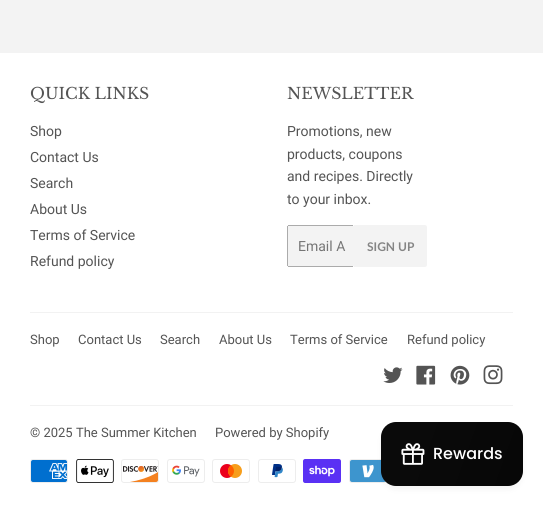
import math
import cairo

surface = cairo.ImageSurface(cairo.FORMAT_RGB24, 543, 506)
c = cairo.Context(surface)
options = cairo.FontOptions()
options.set_hint_metrics(cairo.HINT_METRICS_OFF)
options.set_hint_style(cairo.HINT_STYLE_NONE)
c.set_font_options(options)
c.set_miter_limit(4)
def C(code):
 c.set_source_rgb(*(v / 255 for v in bytes.fromhex(code[-6:])))
def F(family, size, italic, bold):
 c.select_font_face(family, cairo.FONT_SLANT_ITALIC if italic else cairo.FONT_SLANT_NORMAL, cairo.FONT_WEIGHT_BOLD if bold else cairo.FONT_WEIGHT_NORMAL)
 c.set_font_size(size)
def T(x, y, s):
 c.move_to(x, y)
 c.show_text(s)
def R(x, y, w, h):
 c.rectangle(x, y, w, h)
 c.fill()
def Q(x, y, w, h, r):
 c.new_sub_path()
 for i, (u, v) in enumerate([(x + w - r, y + h - r), (x + r, y + h - r), (x + r, y + r), (x + w - r, y + r)]):
  c.arc(u, v, r, i * math.pi / 2, (i + 1) * math.pi / 2)
 c.close_path()
def S(x, y, w, h, r, blur, alpha):
 c.push_group_with_content(cairo.CONTENT_ALPHA)
 c.set_operator(cairo.OPERATOR_SOURCE)
 for i in range(15, -16, -2):
  e = blur * i / 6
  if min(w, h) + 2 * e > 0:
   c.set_source_rgba(0, 0, 0, alpha * math.erfc((i - 1) / 8.5) / 2)
   Q(x - e, y - e, w + 2 * e, h + 2 * e, max(0, min(r + e + blur * .6, min(w, h) / 2 + e)))
   c.fill()
 c.mask(c.pop_group())
def I(path, x, y, w, h):
 c.save()
 c.set_source_surface(cairo.ImageSurface.create_from_png(path), x, y)
 c.rectangle(x, y, w, h)
 c.fill()
 c.restore()
C('f3f3f3')
c.paint()
C('ffffff')
R(0,53,543,453)
F('Libre Baskerville',15.75,0,0)
C('545454')
T(30,99,'QUICK LINKS')
F('Roboto',14,0,0)
T(30,136,'Shop')
T(30,162,'Contact Us')
T(30,188,'Search')
T(30,214,'About Us')
T(30,240,'Terms of Service')
T(30,266,'Refund policy')
F('Libre Baskerville',15.75,0,0)
T(287,99,'NEWSLETTER')
F('Roboto',14,0,0)
T(287,136,'Promotions, new')
T(287,159,'products, coupons')
T(287,181,'and recipes. Directly')
T(287,204,'to your inbox.')
C('f3f3f3')
Q(287,225,67,42,2)
c.fill()
C('ababab')
R(288,225,65,1)
R(288,266,65,1)
R(287,226,1,40)
C('757575')
T(298,251,'Email A')
C('f3f3f3')
c.new_path()
c.move_to(354,225)
c.line_to(425,225)
c.curve_to(426,225,427,226,427,227)
c.line_to(427,265)
c.curve_to(427,266,426,267,425,267)
c.line_to(354,267)
c.close_path()
c.fill()
F('Lato',12,0,1)
C('858585')
T(367,251,'SIGN UP')
C('f2f2f2')
R(30,312,483,1)
F('Roboto',13,0,0)
C('545454')
T(30,344,'Shop')
T(78,344,'Contact Us')
T(160,344,'Search')
T(219,344,'About Us')
T(290,344,'Terms of Service')
T(407,344,'Refund policy')
I('1.png',383,367,20,16)
I('2.png',416,365,20,20)
I('3.png',450,365,20,20)
I('4.png',483,365,20,20)
C('f2f2f2')
R(30,405,483,1)
C('545454')
T(30,437,'© 2025 The Summer Kitchen')
T(215,437,'Powered by Shopify')
I('5.png',30,459,38,24)
I('6.png',76,459,38,24)
I('7.png',121,459,38,24)
I('8.png',167,459,38,24)
I('9.png',212,459,38,24)
I('10.png',258,459,38,24)
I('11.png',303,459,38,24)
I('12.png',349,459,37,24)
C('444444')
S(383,428,138,60,13,4,.08)
gradient = cairo.LinearGradient(379,428,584,501)
gradient.add_color_stop_rgba(.17,0.039,0.039,0.039,1)
gradient.add_color_stop_rgba(1,0.02,0.02,0.02,1)
c.set_source(gradient)
Q(381,422,142,64,15)
c.fill()
I('13.png',401,443,24,22)
F('Poppins Medium',16,0,0)
C('ffffff')
T(433,459,'Rewards')
surface.write_to_png('o.png')
